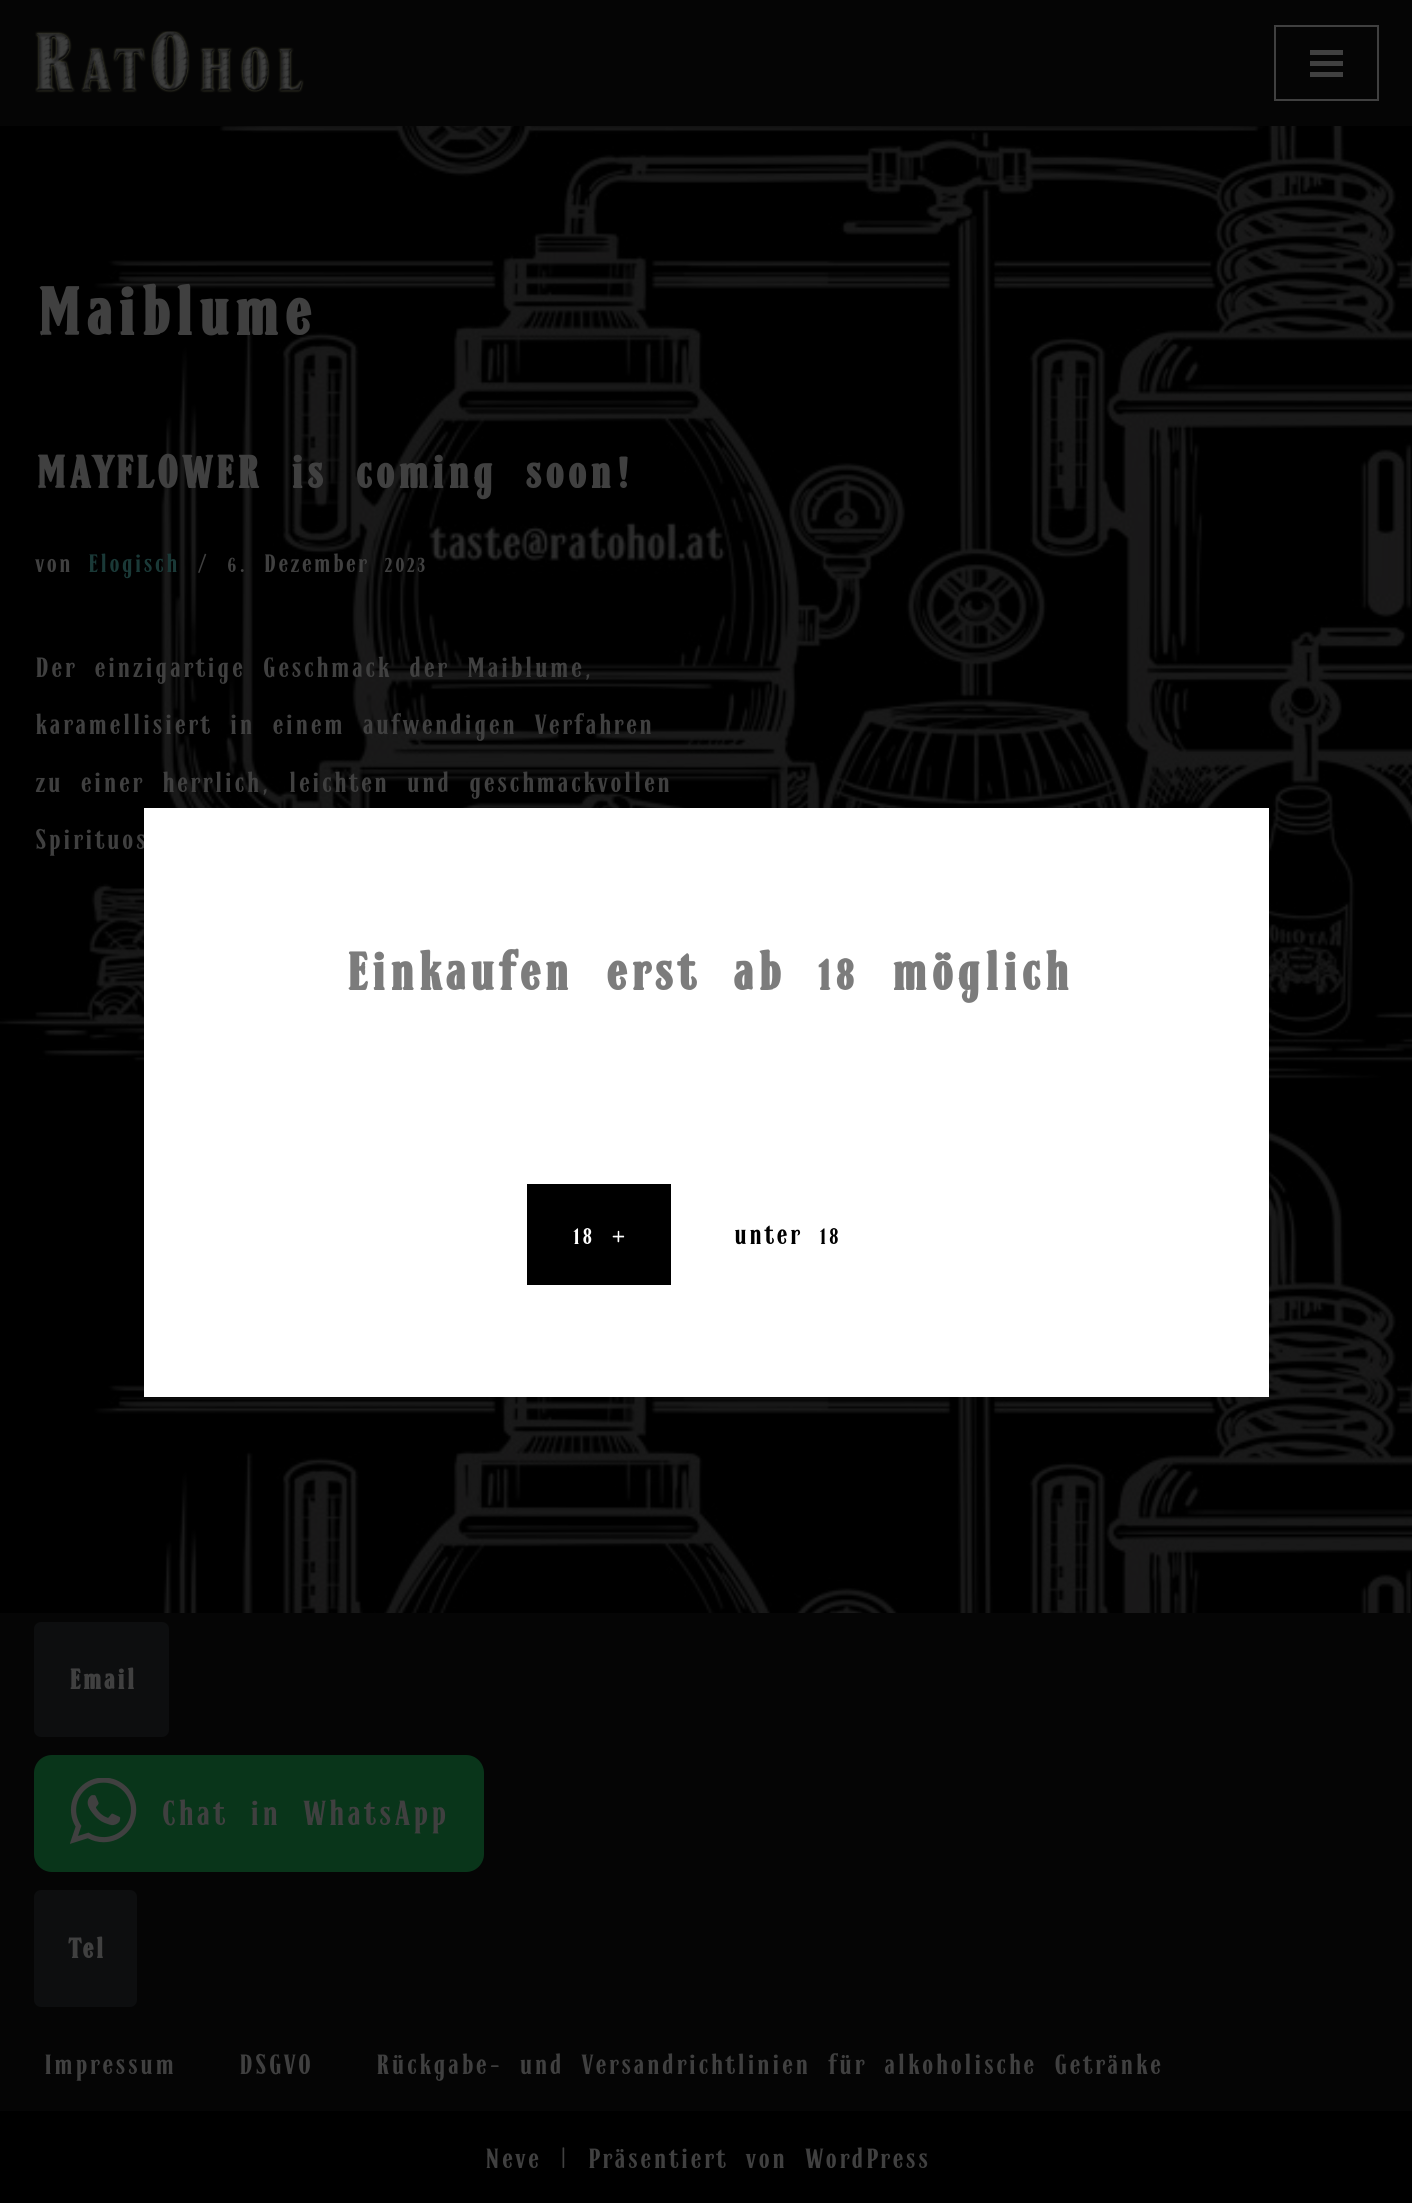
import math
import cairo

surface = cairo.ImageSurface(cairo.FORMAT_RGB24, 1412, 2203)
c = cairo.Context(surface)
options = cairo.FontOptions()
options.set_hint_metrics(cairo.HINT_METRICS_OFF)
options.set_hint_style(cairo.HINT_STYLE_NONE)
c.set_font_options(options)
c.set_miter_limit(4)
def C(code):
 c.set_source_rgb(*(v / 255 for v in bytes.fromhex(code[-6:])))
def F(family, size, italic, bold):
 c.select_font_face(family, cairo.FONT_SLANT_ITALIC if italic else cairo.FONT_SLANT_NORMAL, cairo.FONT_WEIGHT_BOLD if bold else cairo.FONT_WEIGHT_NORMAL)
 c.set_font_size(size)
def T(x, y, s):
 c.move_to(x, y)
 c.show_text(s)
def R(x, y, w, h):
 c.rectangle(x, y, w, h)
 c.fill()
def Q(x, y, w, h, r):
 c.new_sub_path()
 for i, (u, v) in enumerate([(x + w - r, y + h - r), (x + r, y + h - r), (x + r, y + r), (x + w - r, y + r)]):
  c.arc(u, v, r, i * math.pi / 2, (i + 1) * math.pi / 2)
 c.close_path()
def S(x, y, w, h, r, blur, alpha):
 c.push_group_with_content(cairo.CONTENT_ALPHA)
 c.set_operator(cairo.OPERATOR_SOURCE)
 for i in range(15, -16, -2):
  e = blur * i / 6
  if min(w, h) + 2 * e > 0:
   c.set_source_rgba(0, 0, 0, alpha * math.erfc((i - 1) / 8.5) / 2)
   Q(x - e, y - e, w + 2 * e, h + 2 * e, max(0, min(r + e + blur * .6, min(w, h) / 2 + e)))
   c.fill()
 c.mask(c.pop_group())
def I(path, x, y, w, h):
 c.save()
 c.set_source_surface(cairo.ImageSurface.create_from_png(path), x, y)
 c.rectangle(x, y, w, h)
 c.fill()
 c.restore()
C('ffffff')
c.paint()
I('1.png',0,126,1412,1487)
C('000000')
S(0,-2,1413,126,0,3.5,.1)
C('050505')
R(0,0,1412,126)
I('2.png',35,31,269,62)
c.rectangle(1275,26,103,74)
C('404040')
c.stroke()
R(1310,50,33,5)
R(1310,61,33,5)
R(1310,72,33,5)
F('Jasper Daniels',85.5,0,1)
T(34,335,'Maiblume')
F('Jasper Daniels',58.5,0,1)
T(34,488,'MAYFLOWER is coming soon!')
F('Jasper Daniels Medium',32.5,0,0)
T(34,572,'von')
C('1a3937')
T(87,572,'Elogisch')
C('404040')
T(196,572,'/')
T(226,572,'6. Dezember 2023')
F('Jasper Daniels Medium',36,0,0)
T(34,677,'Der einzigartige Geschmack der Maiblume,')
T(34,734,'karamellisiert in einem aufwendigen Verfahren')
T(34,792,'zu einer herrlich, leichten und geschmackvollen')
T(34,849,'Spirituos')
C('050505')
R(0,1613,1412,498)
C('0d0e0f')
Q(34,1622,135,115,7)
c.fill()
F('Jasper Daniels',36,0,1)
C('404040')
T(68,1689,'Email')
C('09351a')
Q(34,1755,450,117,18)
c.fill()
I('3.png',70,1778,67,66)
F('Jasper Daniels Medium',45,0,0)
C('404040')
T(160,1825,'Chat in WhatsApp')
C('0d0e0f')
Q(34,1890,103,117,7)
c.fill()
F('Jasper Daniels',36,0,1)
C('404040')
T(68,1958,'Tel')
F('Jasper Daniels Medium',36,0,0)
T(43,2074,'Impressum')
T(238,2074,'DSGVO')
T(375,2074,'Rückgabe- und Versandrichtlinien für alkoholische Getränke')
C('000000')
R(0,2111,1412,92)
C('404040')
T(484,2168,'Neve | Präsentiert von WordPress')
C('ffffff')
R(144,808,1125,589)
F('Jasper Daniels',67.5,0,1)
C('7c7c7c')
T(344,990,'Einkaufen erst ab 18 möglich')
C('000000')
R(527,1184,144,101)
F('Jasper Daniels Medium',36,0,0)
C('ffffff')
T(572,1244,'18 +')
C('000000')
T(733,1244,'unter 18')
surface.write_to_png('o.png')
